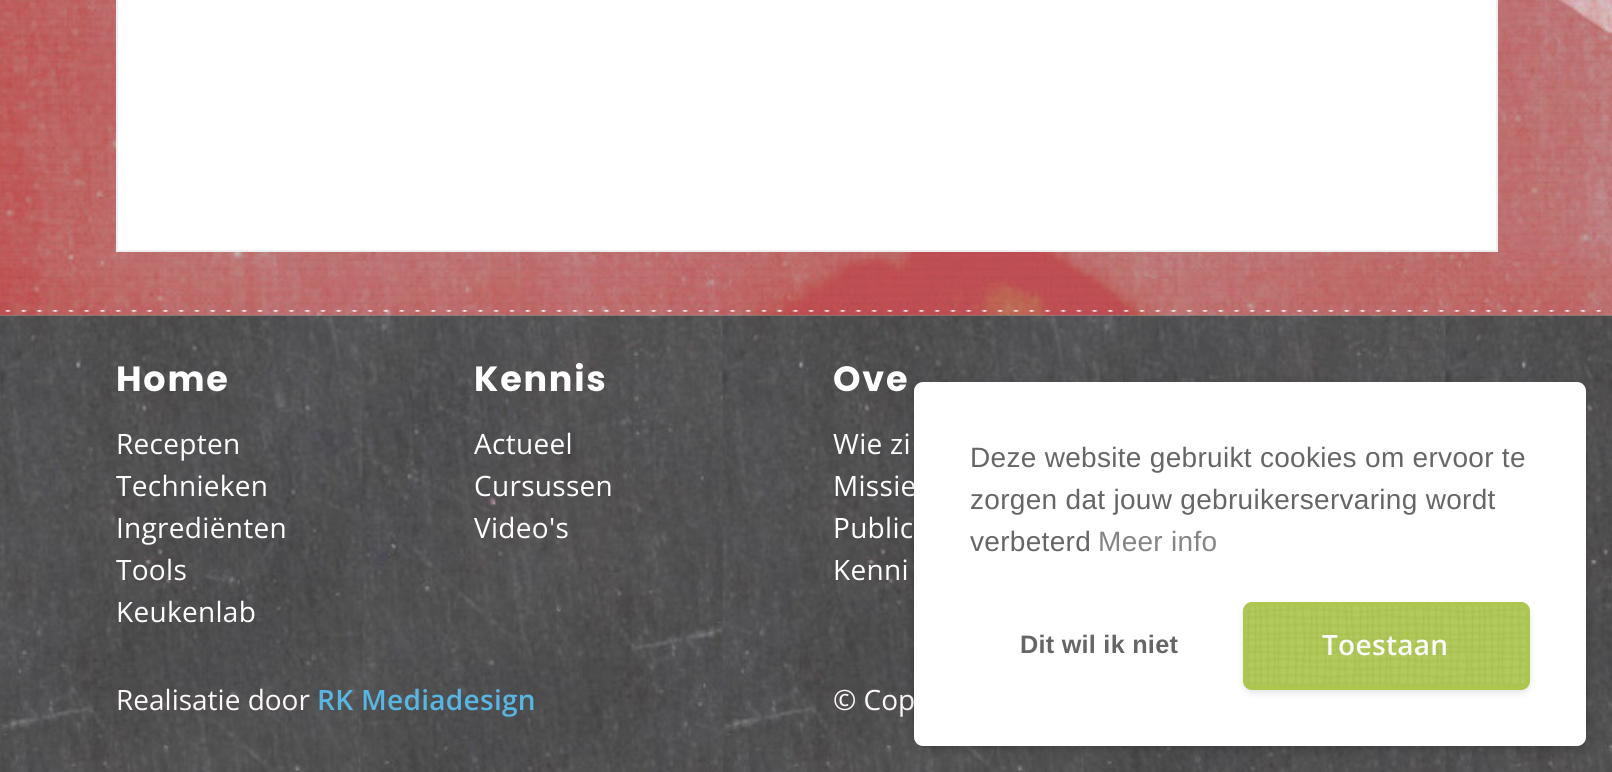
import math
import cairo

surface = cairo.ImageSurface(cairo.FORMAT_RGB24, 1612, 772)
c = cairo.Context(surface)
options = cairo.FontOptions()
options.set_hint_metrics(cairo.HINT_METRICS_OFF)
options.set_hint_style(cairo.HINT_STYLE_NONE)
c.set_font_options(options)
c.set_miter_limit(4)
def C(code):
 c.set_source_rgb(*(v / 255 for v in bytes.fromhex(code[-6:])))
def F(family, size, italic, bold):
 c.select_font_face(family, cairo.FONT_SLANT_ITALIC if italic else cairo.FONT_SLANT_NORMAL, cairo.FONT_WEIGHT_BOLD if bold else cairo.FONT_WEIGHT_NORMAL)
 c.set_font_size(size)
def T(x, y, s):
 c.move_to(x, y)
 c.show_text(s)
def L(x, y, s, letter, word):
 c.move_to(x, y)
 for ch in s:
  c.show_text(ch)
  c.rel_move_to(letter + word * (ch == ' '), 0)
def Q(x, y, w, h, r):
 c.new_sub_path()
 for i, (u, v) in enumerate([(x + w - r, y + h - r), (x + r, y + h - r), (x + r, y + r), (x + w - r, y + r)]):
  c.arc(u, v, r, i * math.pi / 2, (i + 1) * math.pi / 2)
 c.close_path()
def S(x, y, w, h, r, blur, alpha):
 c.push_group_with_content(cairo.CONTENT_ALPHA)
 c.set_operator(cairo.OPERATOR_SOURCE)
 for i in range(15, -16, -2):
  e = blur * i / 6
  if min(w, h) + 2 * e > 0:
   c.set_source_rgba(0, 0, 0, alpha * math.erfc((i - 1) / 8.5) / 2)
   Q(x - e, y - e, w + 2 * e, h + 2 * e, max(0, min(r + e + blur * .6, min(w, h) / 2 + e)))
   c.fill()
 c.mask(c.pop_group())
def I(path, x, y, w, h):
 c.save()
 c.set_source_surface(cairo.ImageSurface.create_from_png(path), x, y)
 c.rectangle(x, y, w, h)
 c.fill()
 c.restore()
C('ffffff')
c.paint()
I('3.png',0,315,1612,457)
I('1.png',0,0,1612,316)
C('ffffff')
c.rectangle(117,-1,1380,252)
c.fill_preserve()
C('eeeeee')
c.stroke()
I('2.png',4,310,1608,2)
F('Poppins',35,0,1)
C('ffffff')
L(116,391,'Home',1.75,0)
F('Open Sans',28,0,0)
L(116,454,'Recepten',.3,0)
L(116,496,'Technieken',.3,0)
L(116,538,'Ingrediënten',.3,0)
L(116,580,'Tools',.3,0)
L(116,622,'Keukenlab',.3,0)
F('Poppins',35,0,1)
L(474,391,'Kennis',1.75,0)
F('Open Sans',28,0,0)
L(474,454,'Actueel',.3,0)
L(474,496,'Cursussen',.3,0)
L(474,538,'Video\'s',.3,0)
F('Poppins',35,0,1)
L(833,391,'Ove',1.75,0)
F('Open Sans',28,0,0)
L(833,454,'Wie zi',.3,0)
L(833,496,'Missie',.3,0)
L(833,538,'Public',.3,0)
L(833,580,'Kenni',.3,0)
C('fef8f8')
T(116,710,'Realisatie door')
F('Open Sans SemiBold',28,0,0)
C('57b6e3')
L(317,710,'RK Mediadesign',.3,0)
F('Open Sans',28,0,0)
C('fef8f8')
T(833,710,'© Cop')
C('000000')
S(914,385,672,364,9,4.5,.2)
C('ffffff')
Q(914,382,672,364,9)
c.fill()
F('Liberation Sans',28,0,0)
C('666666')
L(970,467,'Deze website gebruikt cookies om ervoor te',.3,0)
L(970,509,'zorgen dat jouw gebruikerservaring wordt',.3,0)
L(970,551,'verbeterd',.3,0)
C('858585')
L(1098,551,'Meer info',.3,0)
F('Liberation Sans',25.25,0,1)
C('666666')
L(1020,653,'Dit wil ik niet',.25,0)
C('000000')
S(1243,606,287,87,9,3.5,.1)
C('acc64e')
Q(1243,602,287,88,9)
c.fill()
F('Open Sans SemiBold',28,0,0)
C('ffffff')
L(1322,655,'Toestaan',.3,0)
I('4.png',1246,606,280,80)
surface.write_to_png('o.png')
